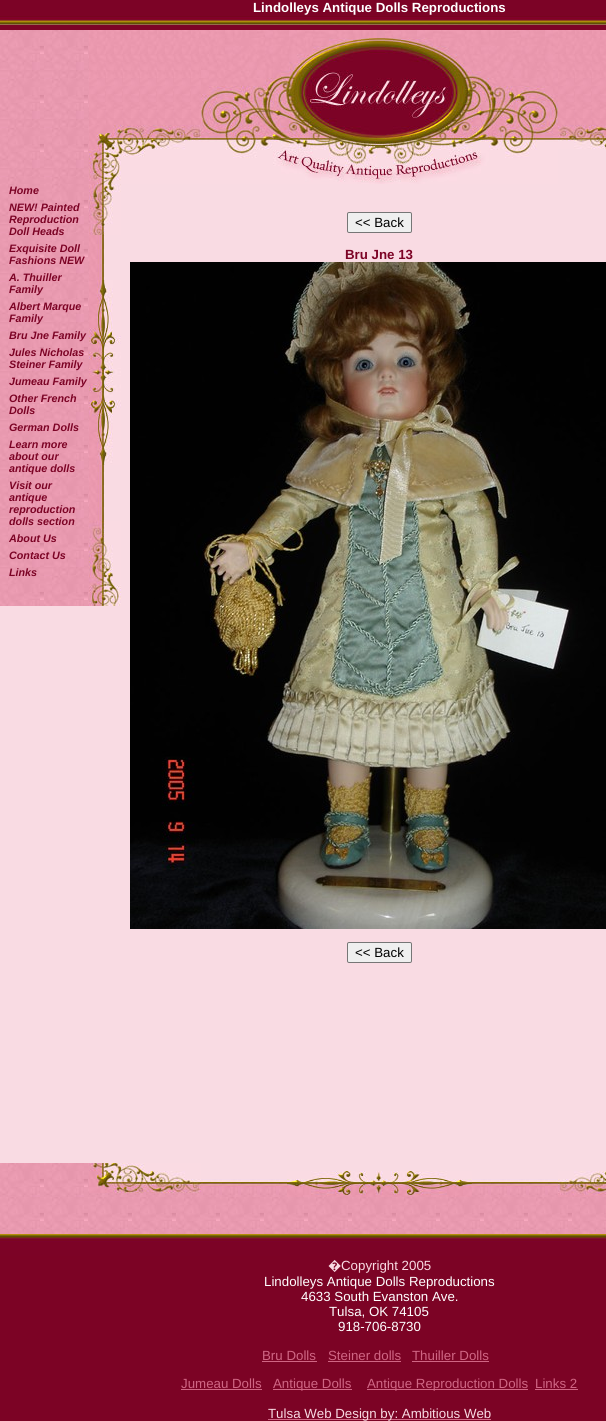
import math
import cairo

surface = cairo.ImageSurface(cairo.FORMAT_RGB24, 606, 1421)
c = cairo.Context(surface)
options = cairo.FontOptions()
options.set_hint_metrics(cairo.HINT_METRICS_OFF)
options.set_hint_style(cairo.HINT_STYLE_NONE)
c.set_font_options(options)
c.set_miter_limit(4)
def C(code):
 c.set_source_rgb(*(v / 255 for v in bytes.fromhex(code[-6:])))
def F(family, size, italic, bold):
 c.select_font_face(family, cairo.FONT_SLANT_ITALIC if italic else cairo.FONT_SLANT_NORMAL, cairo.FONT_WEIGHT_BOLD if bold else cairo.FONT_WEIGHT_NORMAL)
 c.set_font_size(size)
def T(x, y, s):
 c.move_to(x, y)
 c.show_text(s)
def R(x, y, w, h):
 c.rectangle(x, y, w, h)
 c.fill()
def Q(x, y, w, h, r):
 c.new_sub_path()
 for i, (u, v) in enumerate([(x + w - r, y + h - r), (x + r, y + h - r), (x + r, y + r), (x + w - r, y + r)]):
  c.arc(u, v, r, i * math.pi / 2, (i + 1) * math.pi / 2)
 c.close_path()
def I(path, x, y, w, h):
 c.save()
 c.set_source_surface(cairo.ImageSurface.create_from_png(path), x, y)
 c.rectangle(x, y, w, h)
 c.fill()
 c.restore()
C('f9dbe3')
c.paint()
I('1.png',0,0,606,30)
F('Liberation Sans',13.3,0,1)
C('ffffff')
T(253,12,'Lindolleys Antique Dolls Reproductions')
I('2.png',0,30,89,154)
I('3.png',89,30,112,95)
I('4.png',89,125,112,59)
I('5.png',201,30,357,154)
I('6.png',558,30,48,95)
I('7.png',558,125,48,24)
I('8.png',0,184,89,422)
F('Liberation Sans',10.75,1,1)
C('7c0325')
T(9,194,'Home')
T(9,211,'NEW! Painted')
T(9,223,'Reproduction')
T(9,235,'Doll Heads')
T(9,252,'Exquisite Doll')
T(9,264,'Fashions NEW')
T(9,281,'A. Thuiller')
T(9,293,'Family')
T(9,310,'Albert Marque')
T(9,322,'Family')
T(9,339,'Bru Jne Family')
T(9,356,'Jules Nicholas')
T(9,368,'Steiner Family')
T(9,385,'Jumeau Family')
T(9,402,'Other French')
T(9,414,'Dolls')
T(9,431,'German Dolls')
T(9,448,'Learn more')
T(9,460,'about our')
T(9,472,'antique dolls')
T(9,489,'Visit our')
T(9,501,'antique')
T(9,513,'reproduction')
T(9,525,'dolls section')
T(9,542,'About Us')
T(9,559,'Contact Us')
T(9,576,'Links')
I('9.png',89,235,16,16)
I('10.png',89,184,32,51)
I('11.png',89,251,16,243)
I('12.png',89,280,32,185)
I('13.png',89,494,16,27)
I('14.png',89,521,32,85)
C('efefef')
Q(347.5,212.5,64,20,1.5)
c.fill_preserve()
C('767676')
c.set_line_width(1)
c.stroke()
F('Liberation Sans',13.3,0,0)
C('000000')
T(355,227,'<< Back')
F('Liberation Sans',13.3,0,1)
C('7c0325')
T(345,259,'Bru Jne 13')
I('15.png',130,262,476,667)
C('efefef')
Q(347.5,942.5,64,20,1.5)
c.fill_preserve()
C('767676')
c.stroke()
F('Liberation Sans',13.3,0,0)
C('000000')
T(355,957,'<< Back')
I('16.png',0,1163,89,34)
I('17.png',89,1179,198,18)
I('18.png',89,1163,112,30)
I('19.png',287,1171,185,26)
I('20.png',472,1179,86,18)
I('21.png',558,1171,48,26)
I('22.png',0,1197,606,37)
I('23.png',0,1234,606,22)
C('7c0325')
R(0,1256,606,165)
F('Noto Sans',13.3,0,0)
C('f9dbe3')
T(328,1270,'�')
F('Liberation Sans',13.3,0,0)
T(341,1270,'Copyright 2005')
C('ffffff')
T(264,1286,'Lindolleys Antique Dolls Reproductions')
T(301,1301,'4633 South Evanston Ave.')
T(329,1316,'Tulsa, OK 74105')
T(338,1331,'918-706-8730')
C('d06684')
T(262,1360,'Bru Dolls')
R(262,1361,55,1)
T(328,1360,'Steiner dolls')
R(328,1361,73,1)
T(412,1360,'Thuiller Dolls')
R(412,1361,77,1)
T(181,1388,'Jumeau Dolls')
R(181,1389,81,1)
R(273,1389,79,1)
T(273,1388,'Antique Dolls')
R(367,1389,161,1)
T(367,1388,'Antique Reproduction Dolls')
T(535,1388,'Links 2')
R(535,1389,43,1)
R(268,1419,223,1)
C('f9dbe3')
T(268,1418,'Tulsa Web Design by: Ambitious Web')
surface.write_to_png('o.png')
